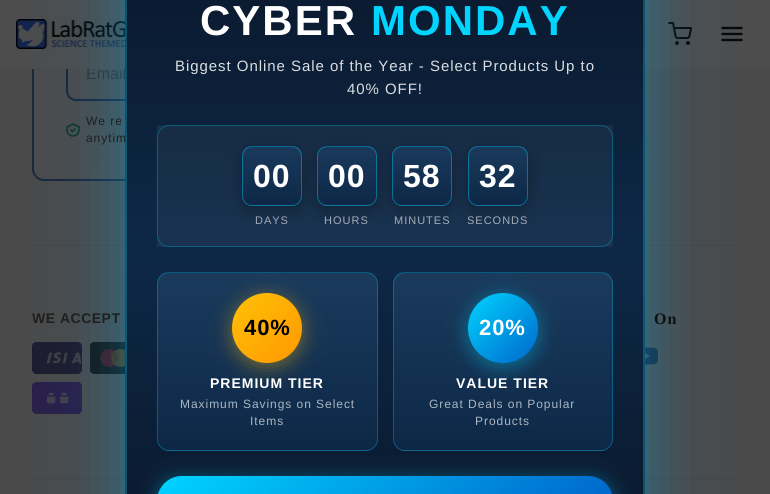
import math
import cairo

surface = cairo.ImageSurface(cairo.FORMAT_RGB24, 770, 494)
c = cairo.Context(surface)
options = cairo.FontOptions()
options.set_hint_metrics(cairo.HINT_METRICS_OFF)
options.set_hint_style(cairo.HINT_STYLE_NONE)
c.set_font_options(options)
c.set_miter_limit(4)
def C(code):
 c.set_source_rgb(*(v / 255 for v in bytes.fromhex(code[-6:])))
def F(family, size, italic, bold):
 c.select_font_face(family, cairo.FONT_SLANT_ITALIC if italic else cairo.FONT_SLANT_NORMAL, cairo.FONT_WEIGHT_BOLD if bold else cairo.FONT_WEIGHT_NORMAL)
 c.set_font_size(size)
def T(x, y, s):
 c.move_to(x, y)
 c.show_text(s)
def L(x, y, s, letter, word):
 c.move_to(x, y)
 for ch in s:
  c.show_text(ch)
  c.rel_move_to(letter + word * (ch == ' '), 0)
def R(x, y, w, h):
 c.rectangle(x, y, w, h)
 c.fill()
def Q(x, y, w, h, r):
 c.new_sub_path()
 for i, (u, v) in enumerate([(x + w - r, y + h - r), (x + r, y + h - r), (x + r, y + r), (x + w - r, y + r)]):
  c.arc(u, v, r, i * math.pi / 2, (i + 1) * math.pi / 2)
 c.close_path()
def S(x, y, w, h, r, blur, alpha):
 c.push_group_with_content(cairo.CONTENT_ALPHA)
 c.set_operator(cairo.OPERATOR_SOURCE)
 for i in range(15, -16, -2):
  e = blur * i / 6
  if min(w, h) + 2 * e > 0:
   c.set_source_rgba(0, 0, 0, alpha * math.erfc((i - 1) / 8.5) / 2)
   Q(x - e, y - e, w + 2 * e, h + 2 * e, max(0, min(r + e + blur * .6, min(w, h) / 2 + e)))
   c.fill()
 c.mask(c.pop_group())
def I(path, x, y, w, h):
 c.save()
 c.set_source_surface(cairo.ImageSurface.create_from_png(path), x, y)
 c.rectangle(x, y, w, h)
 c.fill()
 c.restore()
C('4a4a4a')
c.paint()
c.save()
Q(32,-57,333,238,12)
c.clip()
gradient = cairo.LinearGradient(58,-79,339,203)
gradient.add_color_stop_rgba(0,0.29,0.29,0.294,1)
gradient.add_color_stop_rgba(1,0.302,0.302,0.302,1)
c.set_source(gradient)
R(34,69,91,110)
c.restore()
Q(33,-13,331,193,11)
C('19283c')
c.stroke()
Q(67,48,201,52,9)
c.stroke()
F('Liberation Sans',16,0,0)
C('2f3135')
T(86,79,'Email')
C('4d4d4d')
R(0,0,770,69)
I('1.png',16,19,109,30)
I('2.png',668,22,24,23)
c.new_path()
c.move_to(722.5,28)
c.line_to(741.5,28)
c.move_to(722.5,34)
c.line_to(741.5,34)
c.move_to(722.5,40)
c.line_to(741.5,40)
C('080808')
c.set_line_width(2.4)
c.set_line_cap(cairo.LINE_CAP_ROUND)
c.set_line_join(cairo.LINE_JOIN_ROUND)
c.stroke()
I('3.png',66,123,14,14)
C('454545')
R(32,245,706,1)
I('4.png',32,342,50,32)
C('161616')
Q(90,342,50,32,4)
c.fill()
C('48161c')
c.arc(109.5,358,9,0,2 * math.pi)
c.fill()
C('4a381c')
c.arc(120.5,358,9,0,2 * math.pi)
c.fill()
C('4c2a16')
c.new_path()
c.move_to(115,350.5)
c.curve_to(111,353.5,111,359.5,115,363)
c.curve_to(119,359.5,119,353.5,115,350.5)
c.close_path()
c.fill()
I('5.png',32,382,50,32)
I('6.png',645,347,13,18)
C('444444')
R(32,478,706,1)
C('0066cc')
S(125,-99,520,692,20,50,.2)
C('00d4ff')
S(125,-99,520,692,20,30,.3)
F('Liberation Sans',12,0,0)
C('1f1f1f')
L(86,142,'anytim',.95,0)
gradient = cairo.LinearGradient(385,-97,385,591)
gradient.add_color_stop_rgba(0,0.039,0.086,0.157,1)
gradient.add_color_stop_rgba(.5,0.051,0.157,0.278,1)
gradient.add_color_stop_rgba(1,0.039,0.086,0.157,1)
c.set_source(gradient)
R(125,0,520,494)
c.rectangle(126,-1,518,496)
c.set_source_rgba(0,0.831,1,0.3)
c.set_line_width(2)
c.set_line_cap(cairo.LINE_CAP_BUTT)
c.set_line_join(cairo.LINE_JOIN_MITER)
c.stroke()
F('Liberation Sans',42,0,1)
C('ffffff')
L(200,35,'CYBER',2,0)
C('00d4ff')
L(371,35,'MONDAY',2,0)
F('Liberation Sans',15,0,0)
C('dadde1')
L(175,71,'Biggest Online Sale of the Year - Select Products Up to',.95,0)
L(347,94,'40% OFF!',.95,0)
c.set_source_rgba(1,1,1,0.05)
R(157,125,456,122)
Q(157.5,125.5,455,121,11.5)
c.set_source_rgba(0,0.831,1,0.3)
c.set_line_width(1)
c.stroke()
C('000000')
S(242,150,60,60,10,7.5,.3)
c.save()
Q(242,146,60,60,10)
c.clip()
gradient = cairo.LinearGradient(272,89,272,147)
gradient.add_color_stop_rgba(0,0.102,0.227,0.361,1)
gradient.add_color_stop_rgba(1,0.051,0.157,0.278,1)
c.set_source(gradient)
R(242,146,60,1)
gradient = cairo.LinearGradient(272,147,272,205)
gradient.add_color_stop_rgba(0,0.102,0.227,0.361,1)
gradient.add_color_stop_rgba(1,0.051,0.157,0.278,1)
c.set_source(gradient)
R(242,147,60,58)
gradient = cairo.LinearGradient(272,205,272,263)
gradient.add_color_stop_rgba(0,0.102,0.227,0.361,1)
gradient.add_color_stop_rgba(1,0.051,0.157,0.278,1)
c.set_source(gradient)
R(242,205,60,1)
c.restore()
Q(242.5,146.5,59,59,9.5)
c.set_source_rgba(0,0.831,1,0.4)
c.stroke()
F('Liberation Sans',32,0,1)
C('ffffff')
L(253,187,'00',.95,0)
F('Liberation Sans',11,0,0)
C('a3acb7')
L(255,224,'DAYS',1,0)
C('000000')
S(317,150,60,60,10,7.5,.3)
c.save()
Q(317,146,60,60,10)
c.clip()
gradient = cairo.LinearGradient(347,89,347,147)
gradient.add_color_stop_rgba(0,0.102,0.227,0.361,1)
gradient.add_color_stop_rgba(1,0.051,0.157,0.278,1)
c.set_source(gradient)
R(317,146,60,1)
gradient = cairo.LinearGradient(347,147,347,205)
gradient.add_color_stop_rgba(0,0.102,0.227,0.361,1)
gradient.add_color_stop_rgba(1,0.051,0.157,0.278,1)
c.set_source(gradient)
R(317,147,60,58)
gradient = cairo.LinearGradient(347,205,347,263)
gradient.add_color_stop_rgba(0,0.102,0.227,0.361,1)
gradient.add_color_stop_rgba(1,0.051,0.157,0.278,1)
c.set_source(gradient)
R(317,205,60,1)
c.restore()
Q(317.5,146.5,59,59,9.5)
c.set_source_rgba(0,0.831,1,0.4)
c.stroke()
F('Liberation Sans',32,0,1)
C('ffffff')
L(328,187,'00',.95,0)
F('Liberation Sans',11,0,0)
C('a3acb7')
L(324,224,'HOURS',1,0)
C('000000')
S(392,150,60,60,10,7.5,.3)
c.save()
Q(392,146,60,60,10)
c.clip()
gradient = cairo.LinearGradient(422,89,422,147)
gradient.add_color_stop_rgba(0,0.102,0.227,0.361,1)
gradient.add_color_stop_rgba(1,0.051,0.157,0.278,1)
c.set_source(gradient)
R(392,146,60,1)
gradient = cairo.LinearGradient(422,147,422,205)
gradient.add_color_stop_rgba(0,0.102,0.227,0.361,1)
gradient.add_color_stop_rgba(1,0.051,0.157,0.278,1)
c.set_source(gradient)
R(392,147,60,58)
gradient = cairo.LinearGradient(422,205,422,263)
gradient.add_color_stop_rgba(0,0.102,0.227,0.361,1)
gradient.add_color_stop_rgba(1,0.051,0.157,0.278,1)
c.set_source(gradient)
R(392,205,60,1)
c.restore()
Q(392.5,146.5,59,59,9.5)
c.set_source_rgba(0,0.831,1,0.4)
c.stroke()
F('Liberation Sans',32,0,1)
C('ffffff')
L(403,187,'58',.95,0)
F('Liberation Sans',11,0,0)
C('a3acb7')
L(394,224,'MINUTES',1,0)
C('000000')
S(468,150,60,60,10,7.5,.3)
c.save()
Q(468,146,60,60,10)
c.clip()
gradient = cairo.LinearGradient(498,89,498,147)
gradient.add_color_stop_rgba(0,0.102,0.227,0.361,1)
gradient.add_color_stop_rgba(1,0.051,0.157,0.278,1)
c.set_source(gradient)
R(468,146,60,1)
gradient = cairo.LinearGradient(498,147,498,205)
gradient.add_color_stop_rgba(0,0.102,0.227,0.361,1)
gradient.add_color_stop_rgba(1,0.051,0.157,0.278,1)
c.set_source(gradient)
R(468,147,60,58)
gradient = cairo.LinearGradient(498,205,498,263)
gradient.add_color_stop_rgba(0,0.102,0.227,0.361,1)
gradient.add_color_stop_rgba(1,0.051,0.157,0.278,1)
c.set_source(gradient)
R(468,205,60,1)
c.restore()
Q(468.5,146.5,59,59,9.5)
c.set_source_rgba(0,0.831,1,0.4)
c.stroke()
F('Liberation Sans',32,0,1)
C('ffffff')
L(479,187,'32',.95,0)
F('Liberation Sans',11,0,0)
C('a3acb7')
L(467,224,'SECONDS',1,0)
C('00d4ff')
S(157,480,456,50,25,10,.4)
c.save()
Q(157,272,221,179,12)
c.clip()
gradient = cairo.LinearGradient(268,273,268,450)
gradient.add_color_stop_rgba(0,0.102,0.227,0.361,1)
gradient.add_color_stop_rgba(1,0.051,0.157,0.278,1)
c.set_source(gradient)
R(157,273,221,177)
gradient = cairo.LinearGradient(268,450,268,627)
gradient.add_color_stop_rgba(0,0.102,0.227,0.361,1)
gradient.add_color_stop_rgba(1,0.051,0.157,0.278,1)
c.set_source(gradient)
R(157,450,221,1)
c.restore()
Q(157.5,272.5,220,178,11.5)
c.set_source_rgba(0,0.831,1,0.3)
c.stroke()
C('ffc107')
S(232,297,70,70,35,10,.4)
gradient = cairo.LinearGradient(232,293,302,363)
gradient.add_color_stop_rgba(0,1,0.757,0.027,1)
gradient.add_color_stop_rgba(1,1,0.596,0,1)
c.set_source(gradient)
c.arc(267,328,35,0,2 * math.pi)
c.fill()
F('Liberation Sans',22,0,1)
C('000000')
L(244,335,'40%',.95,0)
F('Liberation Sans',14,0,1)
C('ffffff')
L(210,388,'PREMIUM TIER',1,0)
F('Liberation Sans',12,0,0)
C('abb5c1')
L(180,408,'Maximum Savings on Select',.95,0)
L(250,425,'Items',.95,0)
c.save()
Q(393,272,220,179,12)
c.clip()
gradient = cairo.LinearGradient(503,273,503,450)
gradient.add_color_stop_rgba(0,0.102,0.227,0.361,1)
gradient.add_color_stop_rgba(1,0.051,0.157,0.278,1)
c.set_source(gradient)
R(393,273,220,177)
gradient = cairo.LinearGradient(503,450,503,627)
gradient.add_color_stop_rgba(0,0.102,0.227,0.361,1)
gradient.add_color_stop_rgba(1,0.051,0.157,0.278,1)
c.set_source(gradient)
R(393,450,220,1)
c.restore()
Q(393.5,272.5,219,178,11.5)
c.set_source_rgba(0,0.831,1,0.3)
c.stroke()
C('00d4ff')
S(468,297,70,70,35,10,.4)
gradient = cairo.LinearGradient(468,293,538,363)
gradient.add_color_stop_rgba(0,0,0.831,1,1)
gradient.add_color_stop_rgba(1,0,0.4,0.8,1)
c.set_source(gradient)
c.arc(503,328,35,0,2 * math.pi)
c.fill()
F('Liberation Sans',22,0,1)
C('ffffff')
L(479,335,'20%',.95,0)
F('Liberation Sans',14,0,1)
L(456,388,'VALUE TIER',1,0)
F('Liberation Sans',12,0,0)
C('abb5c1')
L(429,408,'Great Deals on Popular',.95,0)
L(475,425,'Products',.95,0)
gradient = cairo.LinearGradient(373,261,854,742)
gradient.add_color_stop_rgba(0,0,0.831,1,1)
gradient.add_color_stop_rgba(.5,0,0.4,0.8,1)
gradient.add_color_stop_rgba(1,0,0.831,1,1)
c.set_source(gradient)
Q(157,476,456,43,25)
c.fill()
C('1f1f1f')
L(86,125,'We re',.95,0)
F('Liberation Sans',14,0,1)
L(32,323,'WE ACCEPT',.5,0)
F('Liberation Serif',16,0,1)
C('0f0f0f')
L(654,324,'On',.95,0)
surface.write_to_png('o.png')
